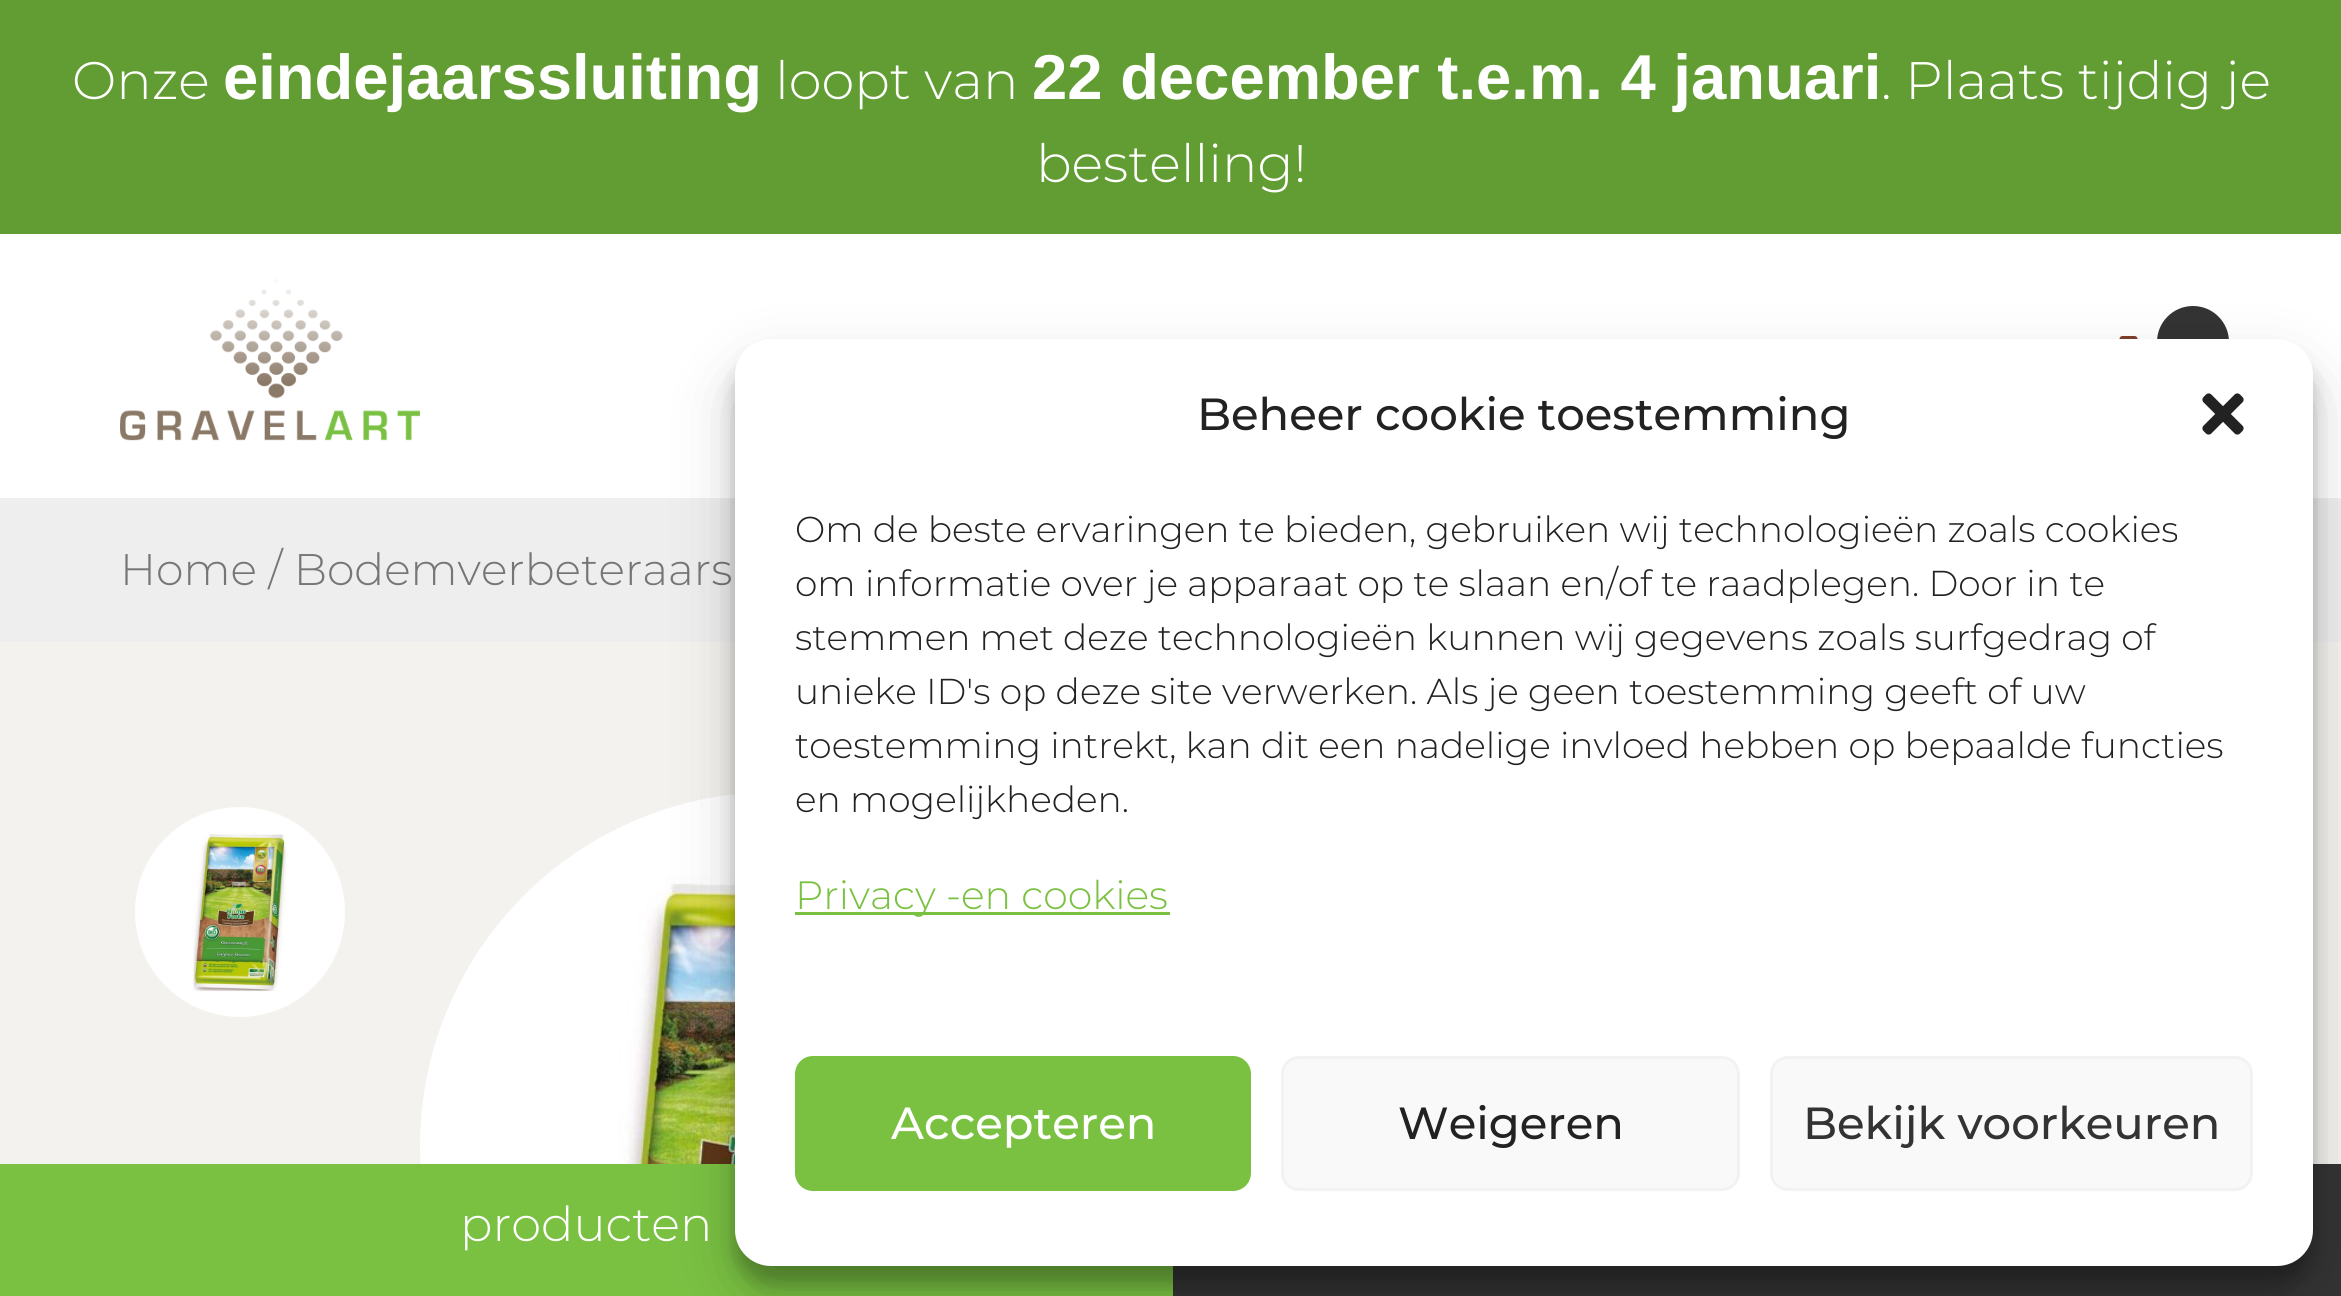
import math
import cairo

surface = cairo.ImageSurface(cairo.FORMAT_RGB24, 2341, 1296)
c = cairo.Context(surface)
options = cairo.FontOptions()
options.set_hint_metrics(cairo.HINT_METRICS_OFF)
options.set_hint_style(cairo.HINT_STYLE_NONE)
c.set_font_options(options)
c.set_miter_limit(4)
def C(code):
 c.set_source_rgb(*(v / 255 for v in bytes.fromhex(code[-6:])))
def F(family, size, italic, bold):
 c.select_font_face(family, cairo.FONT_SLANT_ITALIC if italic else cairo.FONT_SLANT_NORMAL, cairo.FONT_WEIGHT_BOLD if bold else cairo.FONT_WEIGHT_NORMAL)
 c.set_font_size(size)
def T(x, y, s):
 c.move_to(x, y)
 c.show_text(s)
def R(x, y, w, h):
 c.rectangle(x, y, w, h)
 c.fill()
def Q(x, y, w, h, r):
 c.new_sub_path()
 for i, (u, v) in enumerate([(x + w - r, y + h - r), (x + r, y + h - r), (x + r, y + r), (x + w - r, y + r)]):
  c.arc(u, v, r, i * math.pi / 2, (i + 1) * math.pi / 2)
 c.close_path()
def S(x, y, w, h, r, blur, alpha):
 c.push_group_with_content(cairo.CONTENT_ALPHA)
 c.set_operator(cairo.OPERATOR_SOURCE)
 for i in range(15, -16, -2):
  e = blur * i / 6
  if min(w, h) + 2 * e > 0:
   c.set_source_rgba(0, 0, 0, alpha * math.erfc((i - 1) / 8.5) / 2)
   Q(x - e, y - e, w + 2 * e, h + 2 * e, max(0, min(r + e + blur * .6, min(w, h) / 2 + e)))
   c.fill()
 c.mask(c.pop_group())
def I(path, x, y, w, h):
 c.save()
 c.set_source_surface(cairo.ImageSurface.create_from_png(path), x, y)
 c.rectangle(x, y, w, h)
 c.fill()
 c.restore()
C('ffffff')
c.paint()
C('629d33')
R(0,0,2341,234)
F('Montserrat Light',52.75,0,0)
C('ffffff')
T(72,99,'Onze')
F('Liberation Sans',63.4,0,1)
T(223,99,'eindejaarssluiting')
F('Montserrat Light',52.75,0,0)
T(775,99,'loopt van')
F('Liberation Sans',63.4,0,1)
T(1032,99,'22 december t.e.m. 4 januari')
F('Montserrat Light',52.75,0,0)
T(1881,99,'. Plaats tijdig je')
T(1036,182,'bestelling!')
C('efefef')
R(0,498,2341,3)
I('1.png',120,279,300,162)
c.new_path()
c.move_to(2122.5,339)
c.line_to(2134.5,339)
c.line_to(2142.5,379)
c.curve_to(2143,382,2145.5,384,2148.5,384)
c.line_to(2177.5,384)
c.curve_to(2180.5,384,2183,382,2183.5,379)
c.line_to(2188.5,354)
c.line_to(2137.5,354)
C('7d4029')
c.set_line_width(6)
c.set_line_cap(cairo.LINE_CAP_ROUND)
c.set_line_join(cairo.LINE_JOIN_ROUND)
c.stroke()
C('333333')
c.arc(2193,342,36,0,2 * math.pi)
c.fill()
C('f4f2ef')
R(0,642,2341,522)
C('eeeeee')
R(0,501,2341,141)
F('Montserrat Light',44.2,0,0)
C('767676')
T(120,585,'Home / Bodemverbeteraars')
I('2.png',135,807,210,210)
I('3.png',420,794,315,370)
C('7ac142')
R(0,1164,1173,132)
C('333333')
R(1173,1164,1168,132)
C('000000')
S(735,357,1578,927,36,9,.23)
S(735,369,1578,927,36,30,.19)
C('ffffff')
Q(735,339,1578,927,36)
c.fill()
F('Montserrat Medium',45,0,0)
C('222222')
T(1197,430,'Beheer cookie toestemming')
I('4.png',2202,393,42,42)
F('Montserrat Light',36,0,0)
T(795,542,'Om de beste ervaringen te bieden, gebruiken wij technologieën zoals cookies')
T(795,596,'om informatie over je apparaat op te slaan en/of te raadplegen. Door in te')
T(795,650,'stemmen met deze technologieën kunnen wij gegevens zoals surfgedrag of')
T(795,704,'unieke ID\'s op deze site verwerken. Als je geen toestemming geeft of uw')
T(795,758,'toestemming intrekt, kan dit een nadelige invloed hebben op bepaalde functies')
T(795,812,'en mogelijkheden.')
C('7ac142')
R(795,912,375,3)
F('Montserrat Light',39.5,0,0)
T(795,909,'Privacy -en cookies')
Q(796.5,1057.5,453,132,16.5)
c.fill_preserve()
c.set_line_width(3)
c.set_line_cap(cairo.LINE_CAP_BUTT)
c.set_line_join(cairo.LINE_JOIN_MITER)
c.stroke()
F('Montserrat Medium',45,0,0)
C('ffffff')
T(891,1139,'Accepteren')
C('f9f9f9')
Q(1282.5,1057.5,456,132,16.5)
c.fill_preserve()
C('f2f2f2')
c.stroke()
C('222222')
T(1398,1139,'Weigeren')
C('f9f9f9')
Q(1771.5,1057.5,480,132,16.5)
c.fill_preserve()
C('f2f2f2')
c.stroke()
C('333333')
T(1803,1139,'Bekijk voorkeuren')
F('Montserrat Light',48,0,0)
C('ffffff')
T(460,1241,'producten')
surface.write_to_png('o.png')
